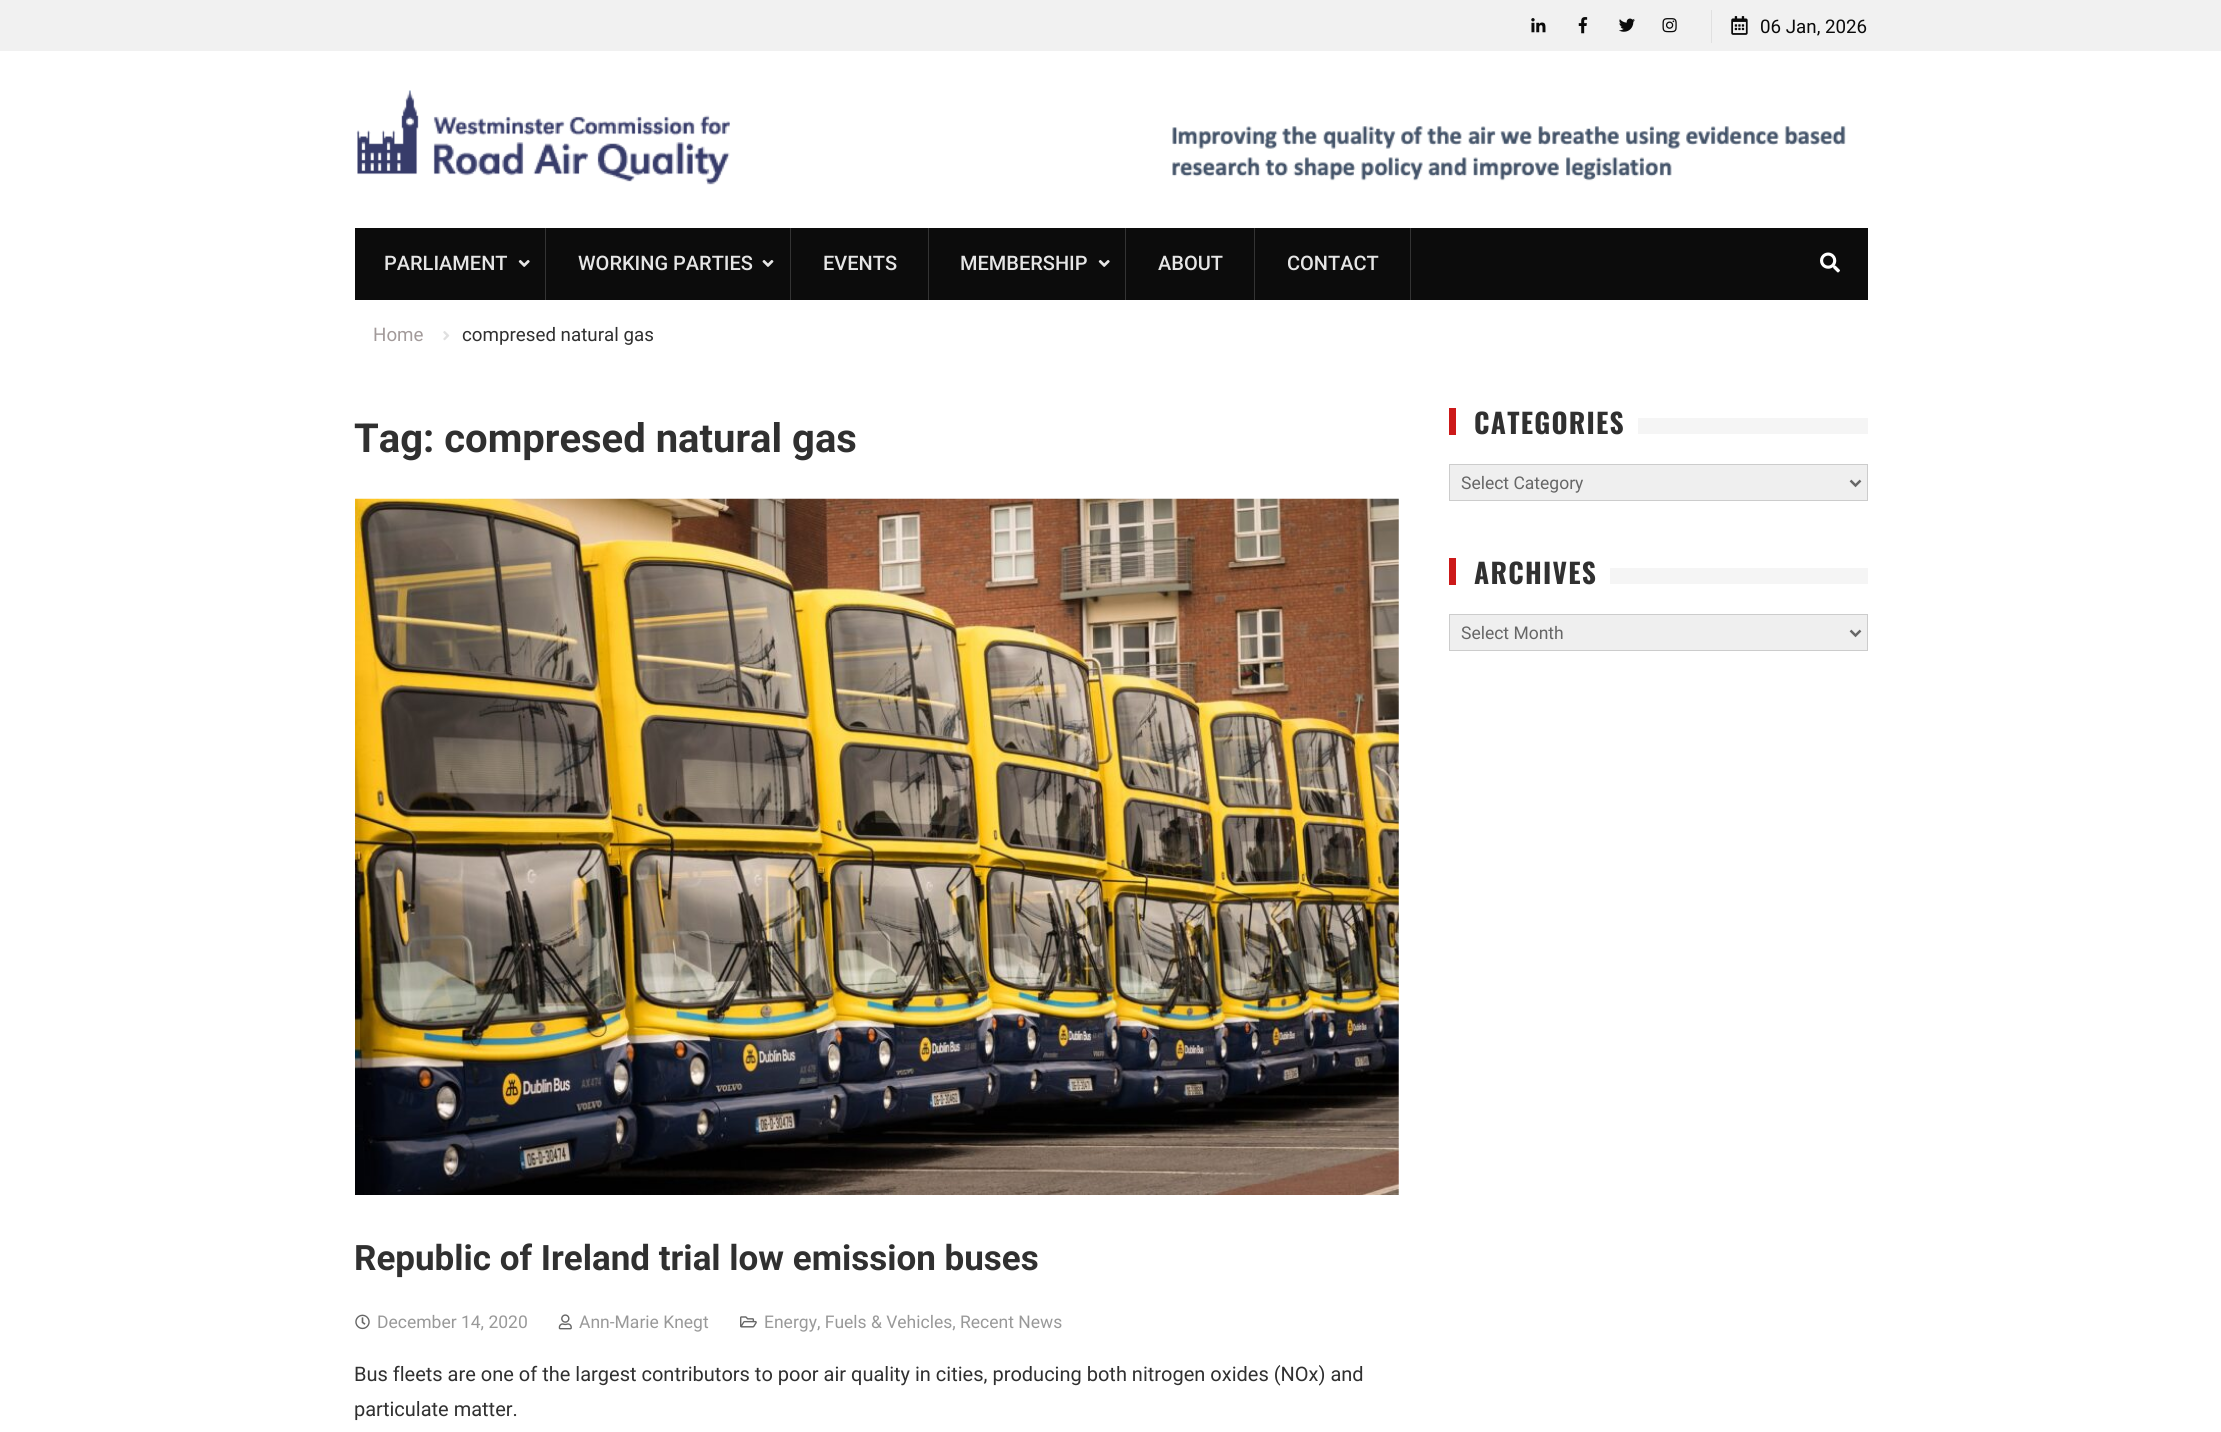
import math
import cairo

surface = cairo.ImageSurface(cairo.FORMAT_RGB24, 2221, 1432)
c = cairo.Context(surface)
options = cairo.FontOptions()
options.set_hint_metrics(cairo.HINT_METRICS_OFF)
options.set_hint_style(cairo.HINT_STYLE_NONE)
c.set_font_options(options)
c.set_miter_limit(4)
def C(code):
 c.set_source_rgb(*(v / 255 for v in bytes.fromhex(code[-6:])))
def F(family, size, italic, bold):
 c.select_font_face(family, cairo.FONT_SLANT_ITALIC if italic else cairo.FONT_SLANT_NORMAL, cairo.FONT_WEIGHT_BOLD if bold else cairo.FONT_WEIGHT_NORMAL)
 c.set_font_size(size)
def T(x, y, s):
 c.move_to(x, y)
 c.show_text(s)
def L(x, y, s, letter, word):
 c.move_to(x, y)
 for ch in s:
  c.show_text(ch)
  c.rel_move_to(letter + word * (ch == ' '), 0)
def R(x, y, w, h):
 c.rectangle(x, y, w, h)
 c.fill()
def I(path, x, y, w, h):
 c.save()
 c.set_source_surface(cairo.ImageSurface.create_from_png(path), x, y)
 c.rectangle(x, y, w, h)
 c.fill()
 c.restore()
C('ffffff')
c.paint()
C('f1f1f1')
R(0,0,2221,51)
I('1.png',1531,18,15,15)
I('2.png',1578,17,10,17)
I('3.png',1619,18,16,14)
I('4.png',1662,18,15,15)
C('e0e0e0')
R(1711,10,1,33)
I('5.png',1731,16,17,19)
F('Roboto',18.75,0,0)
C('0a0a0a')
T(1760,33,'06 Jan, 2026')
I('6.png',356,90,374,95)
I('7.png',1172,126,674,55)
C('0c0c0c')
R(355,228,1513,72)
C('343434')
R(545,228,1,72)
F('Roboto Medium',20,0,0)
C('e6e6e6')
T(384,270,'PARLIAMENT')
I('8.png',518,260,12,7)
C('343434')
R(790,228,1,72)
C('e6e6e6')
T(578,270,'WORKING PARTIES')
I('9.png',762,260,12,7)
C('343434')
R(928,228,1,72)
C('e6e6e6')
T(823,270,'EVENTS')
C('343434')
R(1125,228,1,72)
C('e6e6e6')
T(960,270,'MEMBERSHIP')
I('8.png',1098,260,12,7)
C('343434')
R(1254,228,1,72)
C('e6e6e6')
T(1158,270,'ABOUT')
C('343434')
R(1410,228,1,72)
C('e6e6e6')
T(1287,270,'CONTACT')
I('10.png',1820,252,20,21)
F('Roboto',18.75,0,0)
C('a29a9a')
T(373,341,'Home')
I('11.png',443,331,7,10)
C('303030')
T(462,341,'compresed natural gas')
F('Roboto',40,0,1)
T(354,452,'Tag: compresed natural gas')
I('12.png',355,498,1044,697)
F('Roboto',35,0,1)
T(354,1270,'Republic of Ireland trial low emission buses')
I('13.png',355,1314,15,16)
F('Roboto',17.5,0,0)
C('999999')
T(377,1328,'December 14, 2020')
I('14.png',558,1314,14,16)
T(579,1328,'Ann-Marie Knegt')
I('15.png',740,1316,17,12)
T(764,1328,'Energy, Fuels & Vehicles, Recent News')
F('Roboto',20,0,0)
C('303030')
T(354,1381,'Bus fleets are one of the largest contributors to poor air quality in cities, producing both nitrogen oxides (NOx) and')
T(354,1416,'particulate matter.')
C('cc1919')
R(1449,408,7,27)
F('Oswald',27.5,0,1)
C('303030')
L(1474,434,'CATEGORIES',1.25,0)
C('f5f5f5')
R(1638,418,230,16)
C('efefef')
c.rectangle(1449.5,464.5,418,36)
c.fill_preserve()
C('cccccc')
c.set_line_width(1)
c.stroke()
c.new_path()
c.move_to(1850.5,480.5)
c.line_to(1855.5,485.5)
c.line_to(1860.5,480.5)
C('666666')
c.set_line_width(2.5)
c.stroke()
F('Roboto',17.5,0,0)
T(1461,489,'Select Category')
C('cc1919')
R(1449,558,7,27)
F('Oswald',27.5,0,1)
C('303030')
L(1474,584,'ARCHIVES',1.25,0)
C('f5f5f5')
R(1610,568,258,16)
C('efefef')
c.rectangle(1449.5,614.5,418,36)
c.fill_preserve()
C('cccccc')
c.set_line_width(1)
c.stroke()
c.new_path()
c.move_to(1850.5,630.5)
c.line_to(1855.5,635.5)
c.line_to(1860.5,630.5)
C('666666')
c.set_line_width(2.5)
c.stroke()
F('Roboto',17.5,0,0)
T(1461,639,'Select Month')
surface.write_to_png('o.png')
